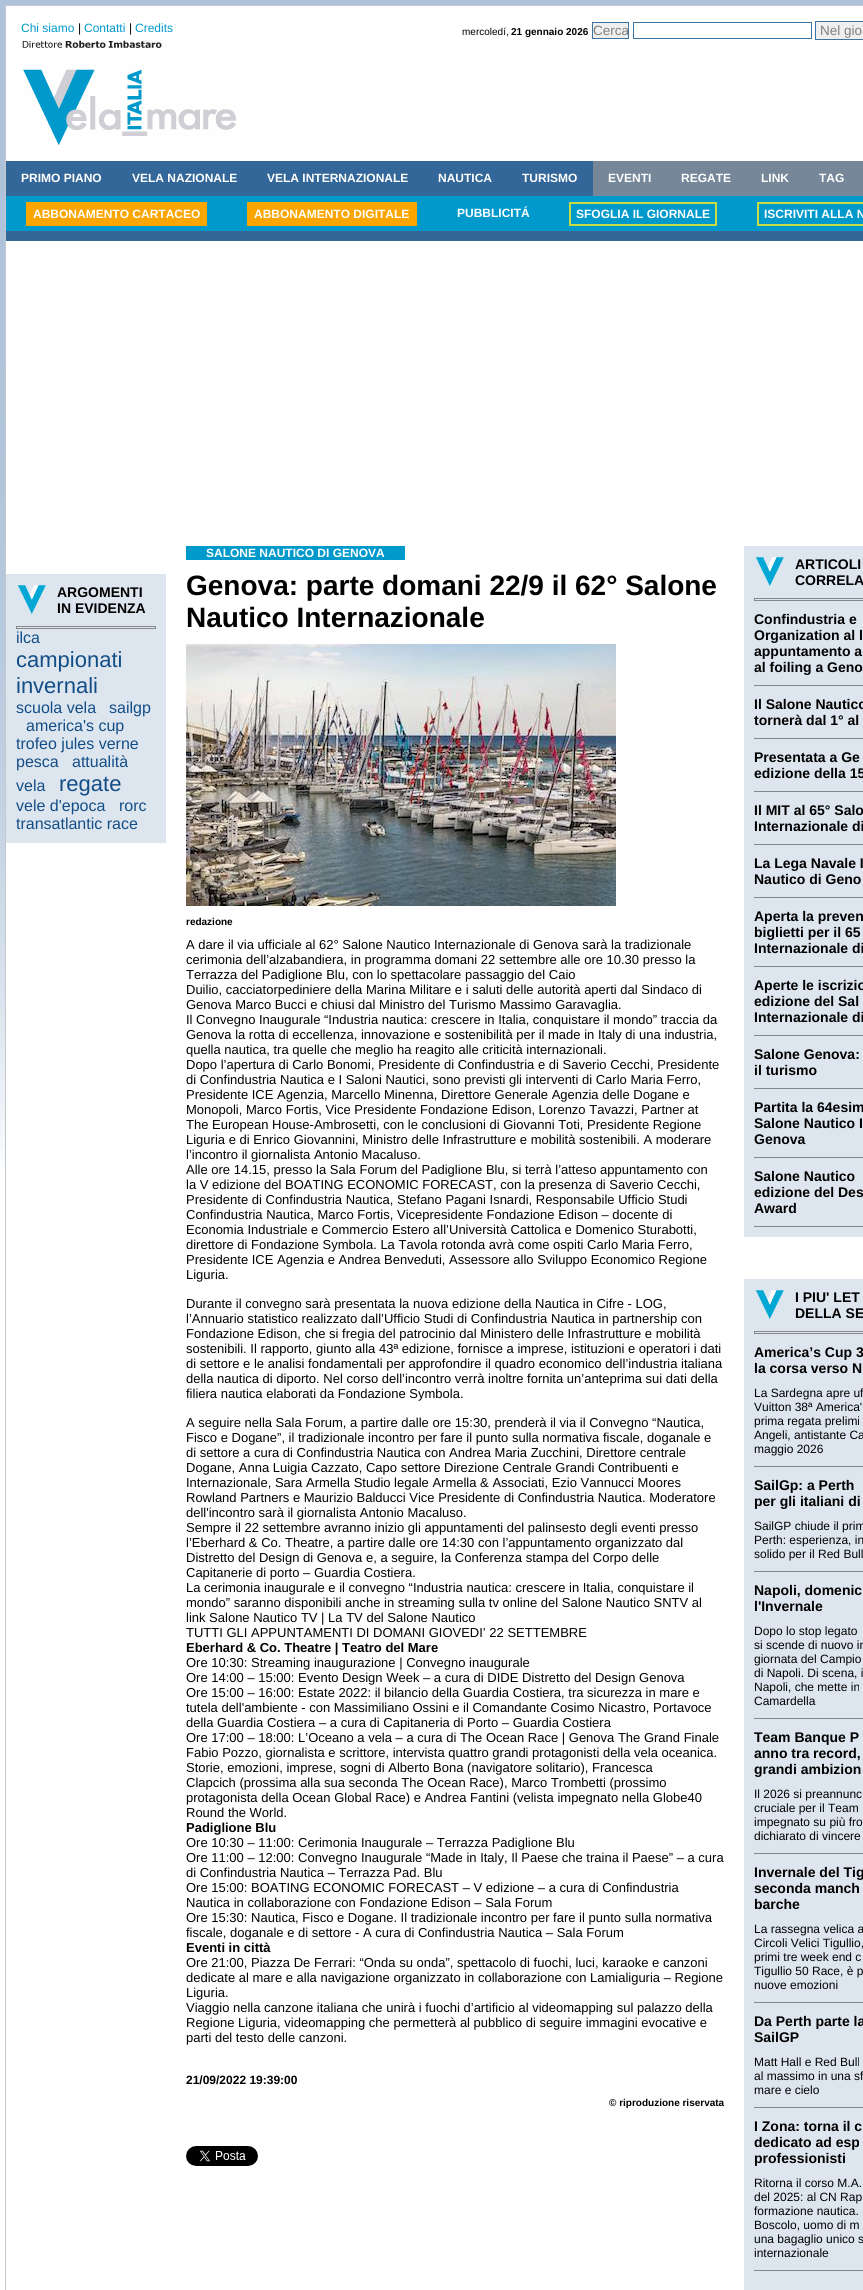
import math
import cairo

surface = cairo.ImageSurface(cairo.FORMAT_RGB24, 863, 2290)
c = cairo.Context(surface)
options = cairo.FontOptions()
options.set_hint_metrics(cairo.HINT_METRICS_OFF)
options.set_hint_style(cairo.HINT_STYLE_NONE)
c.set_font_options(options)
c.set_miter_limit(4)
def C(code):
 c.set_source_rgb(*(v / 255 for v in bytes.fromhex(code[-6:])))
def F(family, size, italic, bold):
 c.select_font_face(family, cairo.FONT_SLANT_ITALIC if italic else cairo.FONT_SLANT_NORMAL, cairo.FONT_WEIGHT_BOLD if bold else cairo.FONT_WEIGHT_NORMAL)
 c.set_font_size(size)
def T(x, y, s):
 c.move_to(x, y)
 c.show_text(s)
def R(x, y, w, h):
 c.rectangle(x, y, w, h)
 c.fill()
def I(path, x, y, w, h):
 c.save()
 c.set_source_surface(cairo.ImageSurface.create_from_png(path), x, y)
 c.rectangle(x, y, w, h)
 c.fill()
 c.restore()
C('ffffff')
c.paint()
I('1.png',0,0,863,1169)
C('ffffff')
R(6,6,857,1163)
c.rectangle(5.5,5.5,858,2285)
C('c4c7cc')
c.set_line_width(1)
c.stroke()
F('Liberation Sans',12,0,0)
C('0099cb')
T(21,32,'Chi siamo')
C('000000')
T(78,32,'|')
C('0099cb')
T(84,32,'Contatti')
C('000000')
T(129,32,'|')
C('0099cb')
T(135,32,'Credits')
F('Liberation Sans',10,0,0)
C('000000')
T(462,35,'mercoledí,')
F('Liberation Sans',10,0,1)
T(511,35,'21 gennaio 2026')
C('efefef')
c.rectangle(592.5,22.5,36,16)
c.fill_preserve()
C('3d73a2')
c.stroke()
F('Liberation Sans',13.5,0,0)
C('808080')
T(593,35,'Cerca')
c.rectangle(633.5,22.5,178,16)
C('3d73a2')
c.stroke()
C('efefef')
c.rectangle(815.5,21.5,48,18)
c.fill_preserve()
C('3d73a2')
c.stroke()
C('808080')
T(820,35,'Nel gio')
I('2.png',21,40,216,105)
C('336799')
R(6,161,587,35)
F('Liberation Sans',12,0,1)
C('ffffff')
T(21,182,'PRIMO PIANO')
T(132,182,'VELA NAZIONALE')
T(267,182,'VELA INTERNAZIONALE')
T(438,182,'NAUTICA')
T(522,182,'TURISMO')
C('768799')
R(593,161,270,35)
C('ffffff')
T(608,182,'EVENTI')
T(681,182,'REGATE')
T(761,182,'LINK')
T(819,182,'TAG')
C('0099cb')
R(6,196,857,35)
C('336799')
R(6,231,857,10)
C('fba500')
R(26,202,181,24)
C('ffffff')
T(33,218,'ABBONAMENTO CARTACEO')
C('fba500')
R(247,202,170,24)
C('ffffff')
T(254,218,'ABBONAMENTO DIGITALE')
T(457,217,'PUBBLICITÁ')
c.rectangle(570,203,146,22)
C('c8db43')
c.set_line_width(2)
c.stroke()
C('ffffff')
T(576,218,'SFOGLIA IL GIORNALE')
c.rectangle(758,203,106,22)
C('c8db43')
c.stroke()
C('ffffff')
T(764,218,'ISCRIVITI ALLA N')
C('dde6ef')
R(6,574,160,269)
I('3.png',16,584,30,31)
F('Liberation Sans',14,0,1)
C('000000')
T(57,597,'ARGOMENTI')
T(57,613,'IN EVIDENZA')
c.rectangle(16.5,626.5,139,2)
C('85898c')
c.set_line_width(1)
c.stroke()
F('Liberation Sans',16,0,0)
C('134d86')
T(16,643,'ilca')
F('Liberation Sans',22,0,0)
T(16,667,'campionati')
T(16,693,'invernali')
F('Liberation Sans',16,0,0)
T(16,713,'scuola vela')
T(109,713,'sailgp')
T(26,731,'america\'s cup')
T(16,749,'trofeo jules verne')
T(16,767,'pesca')
T(72,767,'attualità')
T(16,791,'vela')
F('Liberation Sans',22,0,0)
T(59,791,'regate')
F('Liberation Sans',16,0,0)
T(16,811,'vele d\'epoca')
T(119,811,'rorc')
T(16,829,'transatlantic race')
C('0099cb')
R(186,546,219,14)
F('Liberation Sans',12,0,1)
C('ffffff')
T(206,557,'SALONE NAUTICO DI GENOVA')
F('Liberation Sans',28,0,1)
C('000000')
T(186,595,'Genova: parte domani 22/9 il 62° Salone')
T(186,627,'Nautico Internazionale')
I('4.png',186,644,430,262)
F('Liberation Sans',10,0,1)
T(186,925,'redazione')
F('Liberation Sans',13,0,0)
T(186,949,'A dare il via ufficiale al 62° Salone Nautico Internazionale di Genova sarà la tradizionale')
T(186,964,'cerimonia dell’alzabandiera, in programma domani 22 settembre alle ore 10.30 presso la')
T(186,979,'Terrazza del Padiglione Blu, con lo spettacolare passaggio del Caio')
T(186,994,'Duilio, cacciatorpediniere della Marina Militare e i saluti delle autorità aperti dal Sindaco di')
T(186,1009,'Genova Marco Bucci e chiusi dal Ministro del Turismo Massimo Garavaglia.')
T(186,1024,'Il Convegno Inaugurale “Industria nautica: crescere in Italia, conquistare il mondo” traccia da')
T(186,1039,'Genova la rotta di eccellenza, innovazione e sostenibilità per il made in Italy di una industria,')
T(186,1054,'quella nautica, tra quelle che meglio ha reagito alle criticità internazionali.')
T(186,1069,'Dopo l’apertura di Carlo Bonomi, Presidente di Confindustria e di Saverio Cecchi, Presidente')
T(186,1084,'di Confindustria Nautica e I Saloni Nautici, sono previsti gli interventi di Carlo Maria Ferro,')
T(186,1099,'Presidente ICE Agenzia, Marcello Minenna, Direttore Generale Agenzia delle Dogane e')
T(186,1114,'Monopoli, Marco Fortis, Vice Presidente Fondazione Edison, Lorenzo Tavazzi, Partner at')
T(186,1129,'The European House-Ambrosetti, con le conclusioni di Giovanni Toti, Presidente Regione')
T(186,1144,'Liguria e di Enrico Giovannini, Ministro delle Infrastrutture e mobilità sostenibili. A moderare')
T(186,1159,'l’incontro il giornalista Antonio Macaluso.')
T(186,1174,'Alle ore 14.15, presso la Sala Forum del Padiglione Blu, si terrà l’atteso appuntamento con')
T(186,1189,'la V edizione del BOATING ECONOMIC FORECAST, con la presenza di Saverio Cecchi,')
T(186,1204,'Presidente di Confindustria Nautica, Stefano Pagani Isnardi, Responsabile Ufficio Studi')
T(186,1219,'Confindustria Nautica, Marco Fortis, Vicepresidente Fondazione Edison – docente di')
T(186,1234,'Economia Industriale e Commercio Estero all’Università Cattolica e Domenico Sturabotti,')
T(186,1249,'direttore di Fondazione Symbola. La Tavola rotonda avrà come ospiti Carlo Maria Ferro,')
T(186,1264,'Presidente ICE Agenzia e Andrea Benveduti, Assessore allo Sviluppo Economico Regione')
T(186,1279,'Liguria.')
T(186,1308,'Durante il convegno sarà presentata la nuova edizione della Nautica in Cifre - LOG,')
T(186,1323,'l’Annuario statistico realizzato dall’Ufficio Studi di Confindustria Nautica in partnership con')
T(186,1338,'Fondazione Edison, che si fregia del patrocinio dal Ministero delle Infrastrutture e mobilità')
T(186,1353,'sostenibili. Il rapporto, giunto alla 43ª edizione, fornisce a imprese, istituzioni e operatori i dati')
T(186,1368,'di settore e le analisi fondamentali per approfondire il quadro economico dell’industria italiana')
T(186,1383,'della nautica di diporto. Nel corso dell’incontro verrà inoltre fornita un’anteprima sui dati della')
T(186,1398,'filiera nautica elaborati da Fondazione Symbola.')
T(186,1427,'A seguire nella Sala Forum, a partire dalle ore 15:30, prenderà il via il Convegno “Nautica,')
T(186,1442,'Fisco e Dogane”, il tradizionale incontro per fare il punto sulla normativa fiscale, doganale e')
T(186,1457,'di settore a cura di Confindustria Nautica con Andrea Maria Zucchini, Direttore centrale')
T(186,1472,'Dogane, Anna Luigia Cazzato, Capo settore Direzione Centrale Grandi Contribuenti e')
T(186,1487,'Internazionale, Sara Armella Studio legale Armella & Associati, Ezio Vannucci Moores')
T(186,1502,'Rowland Partners e Maurizio Balducci Vice Presidente di Confindustria Nautica. Moderatore')
T(186,1517,'dell\'incontro sarà il giornalista Antonio Macaluso.')
T(186,1532,'Sempre il 22 settembre avranno inizio gli appuntamenti del palinsesto degli eventi presso')
T(186,1547,'l’Eberhard & Co. Theatre, a partire dalle ore 14:30 con l’appuntamento organizzato dal')
T(186,1562,'Distretto del Design di Genova e, a seguire, la Conferenza stampa del Corpo delle')
T(186,1577,'Capitanerie di porto – Guardia Costiera.')
T(186,1592,'La cerimonia inaugurale e il convegno “Industria nautica: crescere in Italia, conquistare il')
T(186,1607,'mondo” saranno disponibili anche in streaming sulla tv online del Salone Nautico SNTV al')
T(186,1622,'link Salone Nautico TV | La TV del Salone Nautico')
T(186,1637,'TUTTI GLI APPUNTAMENTI DI DOMANI GIOVEDI’ 22 SETTEMBRE')
F('Liberation Sans',13,0,1)
T(186,1652,'Eberhard & Co. Theatre | Teatro del Mare')
F('Liberation Sans',13,0,0)
T(186,1667,'Ore 10:30: Streaming inaugurazione | Convegno inaugurale')
T(186,1682,'Ore 14:00 – 15:00: Evento Design Week – a cura di DIDE Distretto del Design Genova')
T(186,1697,'Ore 15:00 – 16:00: Estate 2022: il bilancio della Guardia Costiera, tra sicurezza in mare e')
T(186,1712,'tutela dell\'ambiente - con Massimiliano Ossini e il Comandante Cosimo Nicastro, Portavoce')
T(186,1727,'della Guardia Costiera – a cura di Capitaneria di Porto – Guardia Costiera')
T(186,1742,'Ore 17:00 – 18:00: L’Oceano a vela – a cura di The Ocean Race | Genova The Grand Finale')
T(186,1757,'Fabio Pozzo, giornalista e scrittore, intervista quattro grandi protagonisti della vela oceanica.')
T(186,1772,'Storie, emozioni, imprese, sogni di Alberto Bona (navigatore solitario), Francesca')
T(186,1787,'Clapcich (prossima alla sua seconda The Ocean Race), Marco Trombetti (prossimo')
T(186,1802,'protagonista della Ocean Global Race) e Andrea Fantini (velista impegnato nella Globe40')
T(186,1817,'Round the World.')
F('Liberation Sans',13,0,1)
T(186,1832,'Padiglione Blu')
F('Liberation Sans',13,0,0)
T(186,1847,'Ore 10:30 – 11:00: Cerimonia Inaugurale – Terrazza Padiglione Blu')
T(186,1862,'Ore 11:00 – 12:00: Convegno Inaugurale “Made in Italy, Il Paese che traina il Paese” – a cura')
T(186,1877,'di Confindustria Nautica – Terrazza Pad. Blu')
T(186,1892,'Ore 15:00: BOATING ECONOMIC FORECAST – V edizione – a cura di Confindustria')
T(186,1907,'Nautica in collaborazione con Fondazione Edison – Sala Forum')
T(186,1922,'Ore 15:30: Nautica, Fisco e Dogane. Il tradizionale incontro per fare il punto sulla normativa')
T(186,1937,'fiscale, doganale e di settore - A cura di Confindustria Nautica – Sala Forum')
F('Liberation Sans',13,0,1)
T(186,1952,'Eventi in città')
F('Liberation Sans',13,0,0)
T(186,1967,'Ore 21:00, Piazza De Ferrari: “Onda su onda”, spettacolo di fuochi, luci, karaoke e canzoni')
T(186,1982,'dedicate al mare e alla navigazione organizzato in collaborazione con Lamialiguria – Regione')
T(186,1997,'Liguria.')
T(186,2012,'Viaggio nella canzone italiana che unirà i fuochi d’artificio al videomapping sul palazzo della')
T(186,2027,'Regione Liguria, videomapping che permetterà al pubblico di seguire immagini evocative e')
T(186,2042,'parti del testo delle canzoni.')
F('Liberation Sans',12,0,1)
T(186,2084,'21/09/2022 19:39:00')
F('Liberation Sans',10,0,1)
T(609,2106,'© riproduzione riservata')
I('5.png',186,2146,72,20)
C('dde6ef')
R(744,546,119,691)
I('3.png',754,556,30,31)
F('Liberation Sans',14,0,1)
C('000000')
T(795,569,'ARTICOLI')
T(795,585,'CORRELA')
c.rectangle(754.5,598.5,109,2)
C('85898c')
c.stroke()
R(754,685,109,1)
C('000000')
T(754,624,'Confindustria e')
T(754,640,'Organization al l')
T(754,656,'appuntamento a')
T(754,672,'al foiling a Geno')
C('85898c')
R(754,738,109,1)
C('000000')
T(754,709,'Il Salone Nautico')
T(754,725,'tornerà dal 1° al')
C('85898c')
R(754,791,109,1)
C('000000')
T(754,762,'Presentata a Ge')
T(754,778,'edizione della 15')
C('85898c')
R(754,844,109,1)
C('000000')
T(754,815,'Il MIT al 65° Salo')
T(754,831,'Internazionale di')
C('85898c')
R(754,897,109,1)
C('000000')
T(754,868,'La Lega Navale I')
T(754,884,'Nautico di Geno')
C('85898c')
R(754,966,109,1)
C('000000')
T(754,921,'Aperta la preven')
T(754,937,'biglietti per il 65')
T(754,953,'Internazionale di')
C('85898c')
R(754,1035,109,1)
C('000000')
T(754,990,'Aperte le iscrizio')
T(754,1006,'edizione del Sal')
T(754,1022,'Internazionale di')
C('85898c')
R(754,1088,109,1)
C('000000')
T(754,1059,'Salone Genova:')
T(754,1075,'il turismo')
C('85898c')
R(754,1157,109,1)
C('000000')
T(754,1112,'Partita la 64esim')
T(754,1128,'Salone Nautico I')
T(754,1144,'Genova')
C('85898c')
R(754,1226,109,1)
C('000000')
T(754,1181,'Salone Nautico')
T(754,1197,'edizione del Des')
T(754,1213,'Award')
C('dde6ef')
R(744,1279,119,1011)
I('3.png',754,1289,30,31)
C('000000')
T(795,1302,'I PIU\' LET')
T(795,1318,'DELLA SE')
c.rectangle(754.5,1331.5,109,2)
C('85898c')
c.stroke()
R(754,1466,109,1)
C('000000')
T(754,1357,'America’s Cup 3')
T(754,1373,'la corsa verso N')
F('Liberation Sans',12,0,0)
T(754,1397,'La Sardegna apre uf')
T(754,1411,'Vuitton 38ª America\'')
T(754,1425,'prima regata prelimi')
T(754,1439,'Angeli, antistante Ca')
T(754,1453,'maggio 2026')
C('85898c')
R(754,1571,109,1)
F('Liberation Sans',14,0,1)
C('000000')
T(754,1490,'SailGp: a Perth')
T(754,1506,'per gli italiani di')
F('Liberation Sans',12,0,0)
T(754,1530,'SailGP chiude il prim')
T(754,1544,'Perth: esperienza, in')
T(754,1558,'solido per il Red Bull')
C('85898c')
R(754,1718,109,1)
F('Liberation Sans',14,0,1)
C('000000')
T(754,1595,'Napoli, domenic')
T(754,1611,'l\'Invernale')
F('Liberation Sans',12,0,0)
T(754,1635,'Dopo lo stop legato')
T(754,1649,'si scende di nuovo in')
T(754,1663,'giornata del Campio')
T(754,1677,'di Napoli. Di scena, i')
T(754,1691,'Napoli, che mette in')
T(754,1705,'Camardella')
C('85898c')
R(754,1853,109,1)
F('Liberation Sans',14,0,1)
C('000000')
T(754,1742,'Team Banque P')
T(754,1758,'anno tra record,')
T(754,1774,'grandi ambizion')
F('Liberation Sans',12,0,0)
T(754,1798,'Il 2026 si preannunc')
T(754,1812,'cruciale per il Team')
T(754,1826,'impegnato su più fro')
T(754,1840,'dichiarato di vincere')
C('85898c')
R(754,2002,109,1)
F('Liberation Sans',14,0,1)
C('000000')
T(754,1877,'Invernale del Tig')
T(754,1893,'seconda manch')
T(754,1909,'barche')
F('Liberation Sans',12,0,0)
T(754,1933,'La rassegna velica a')
T(754,1947,'Circoli Velici Tigullio,')
T(754,1961,'primi tre week end c')
T(754,1975,'Tigullio 50 Race, è p')
T(754,1989,'nuove emozioni')
C('85898c')
R(754,2107,109,1)
F('Liberation Sans',14,0,1)
C('000000')
T(754,2026,'Da Perth parte la')
T(754,2042,'SailGP')
F('Liberation Sans',12,0,0)
T(754,2066,'Matt Hall e Red Bull')
T(754,2080,'al massimo in una sf')
T(754,2094,'mare e cielo')
C('85898c')
R(754,2270,109,1)
F('Liberation Sans',14,0,1)
C('000000')
T(754,2131,'I Zona: torna il c')
T(754,2147,'dedicato ad esp')
T(754,2163,'professionisti')
F('Liberation Sans',12,0,0)
T(754,2187,'Ritorna il corso M.A.')
T(754,2201,'del 2025: al CN Rap')
T(754,2215,'formazione nautica.')
T(754,2229,'Boscolo, uomo di m')
T(754,2243,'una bagaglio unico s')
T(754,2257,'internazionale')
surface.write_to_png('o.png')
